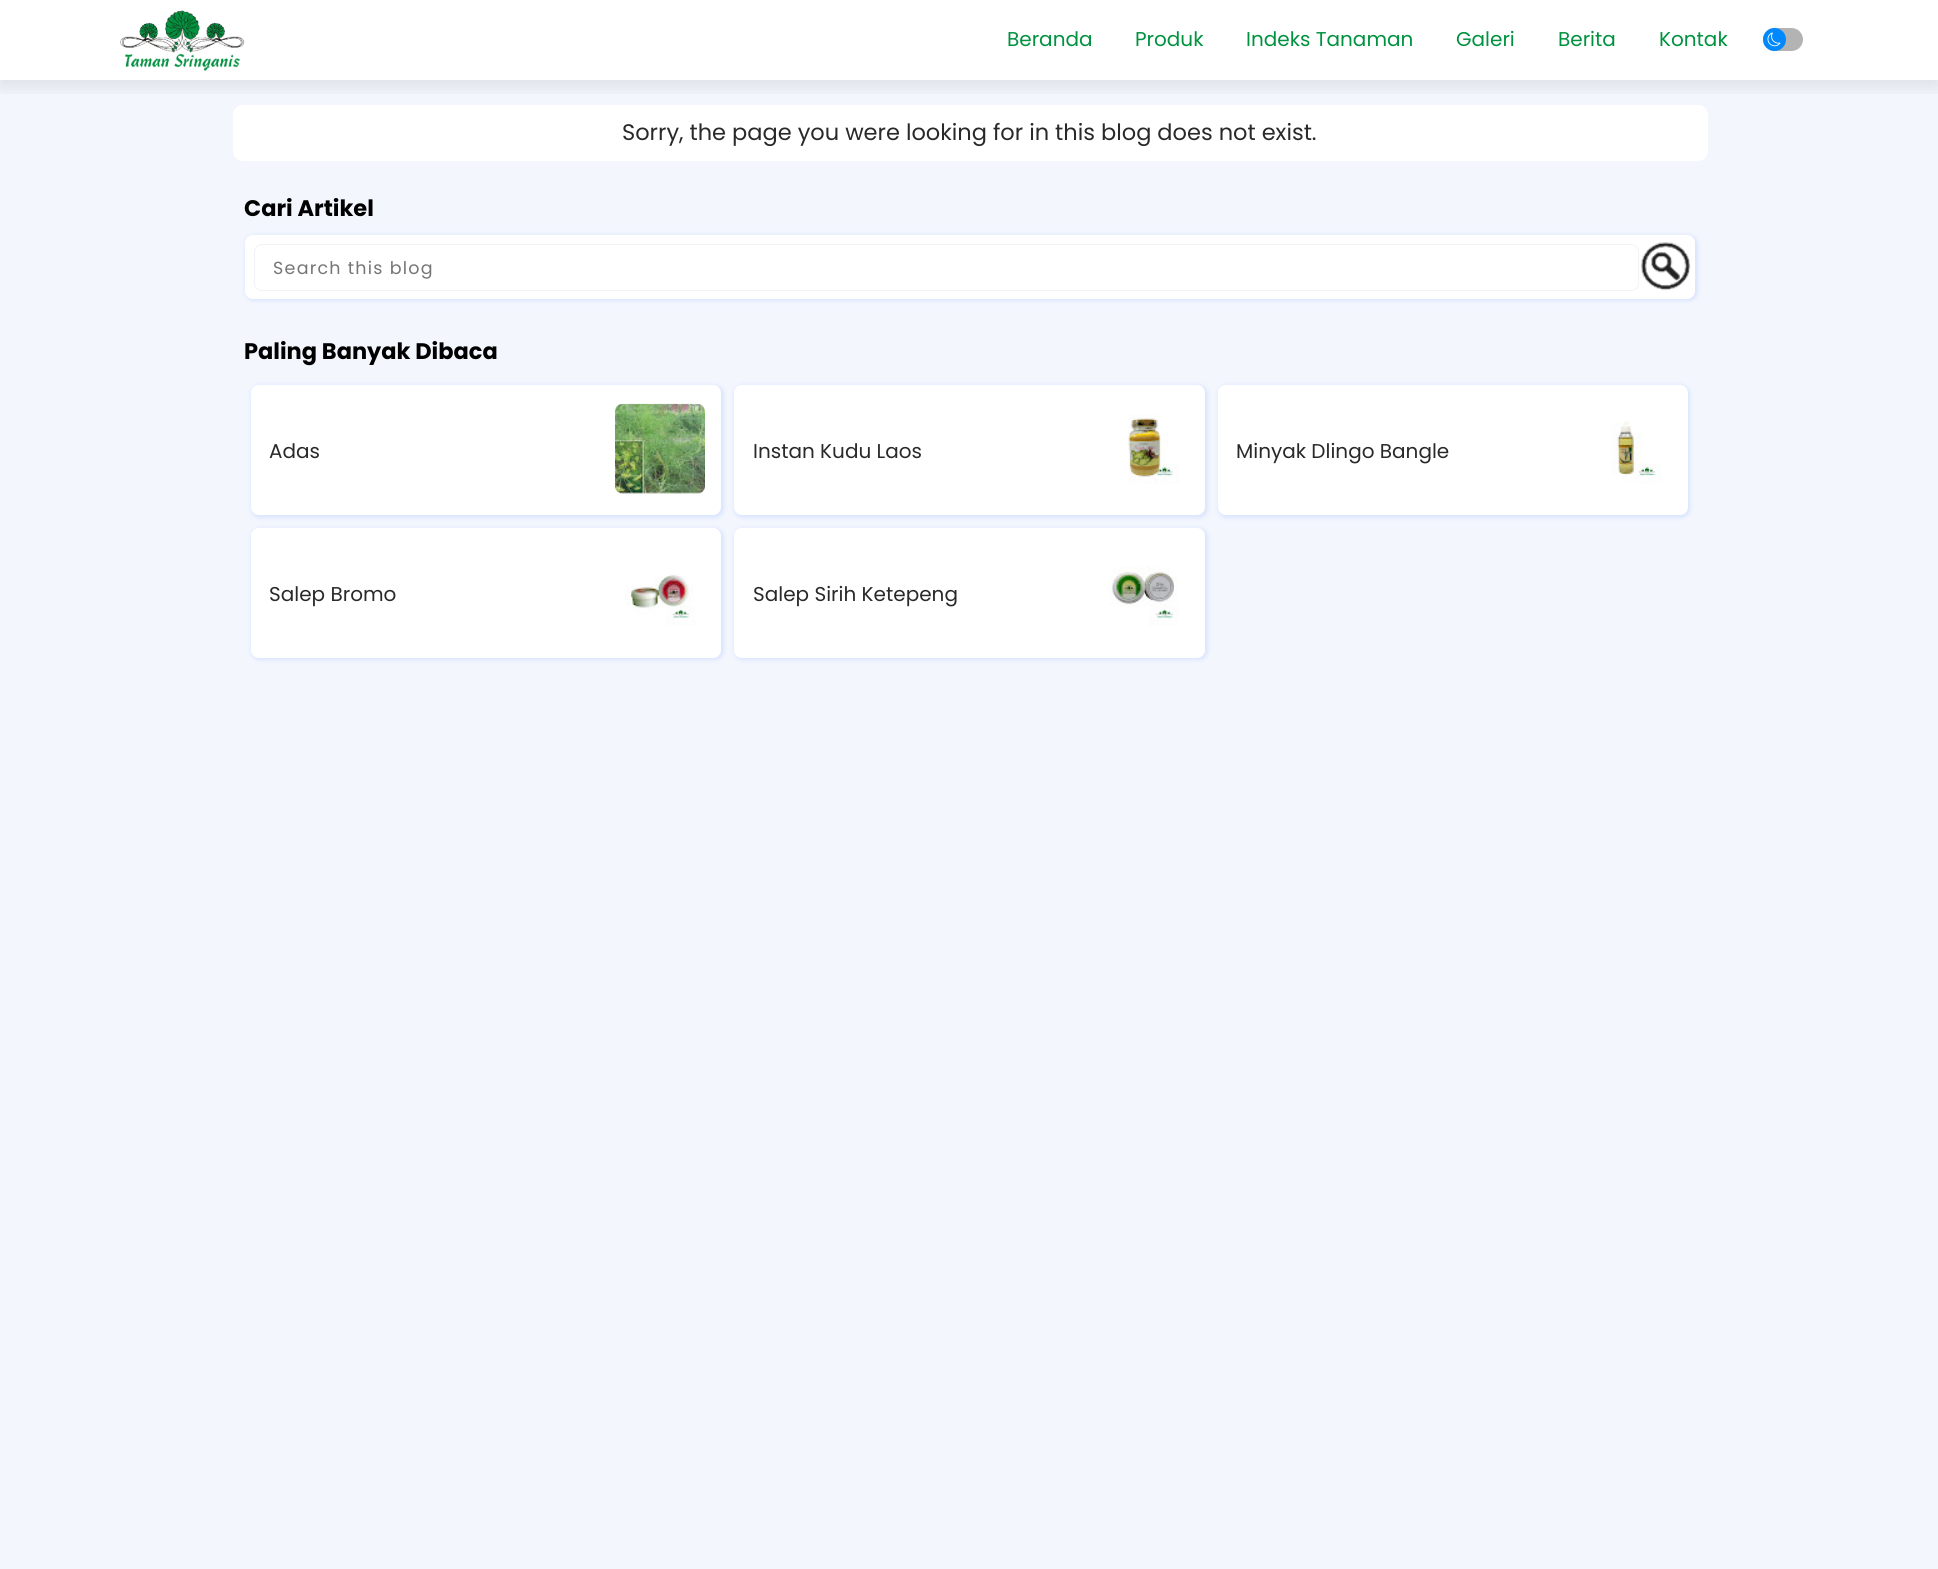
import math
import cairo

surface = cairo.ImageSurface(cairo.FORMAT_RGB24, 1938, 1569)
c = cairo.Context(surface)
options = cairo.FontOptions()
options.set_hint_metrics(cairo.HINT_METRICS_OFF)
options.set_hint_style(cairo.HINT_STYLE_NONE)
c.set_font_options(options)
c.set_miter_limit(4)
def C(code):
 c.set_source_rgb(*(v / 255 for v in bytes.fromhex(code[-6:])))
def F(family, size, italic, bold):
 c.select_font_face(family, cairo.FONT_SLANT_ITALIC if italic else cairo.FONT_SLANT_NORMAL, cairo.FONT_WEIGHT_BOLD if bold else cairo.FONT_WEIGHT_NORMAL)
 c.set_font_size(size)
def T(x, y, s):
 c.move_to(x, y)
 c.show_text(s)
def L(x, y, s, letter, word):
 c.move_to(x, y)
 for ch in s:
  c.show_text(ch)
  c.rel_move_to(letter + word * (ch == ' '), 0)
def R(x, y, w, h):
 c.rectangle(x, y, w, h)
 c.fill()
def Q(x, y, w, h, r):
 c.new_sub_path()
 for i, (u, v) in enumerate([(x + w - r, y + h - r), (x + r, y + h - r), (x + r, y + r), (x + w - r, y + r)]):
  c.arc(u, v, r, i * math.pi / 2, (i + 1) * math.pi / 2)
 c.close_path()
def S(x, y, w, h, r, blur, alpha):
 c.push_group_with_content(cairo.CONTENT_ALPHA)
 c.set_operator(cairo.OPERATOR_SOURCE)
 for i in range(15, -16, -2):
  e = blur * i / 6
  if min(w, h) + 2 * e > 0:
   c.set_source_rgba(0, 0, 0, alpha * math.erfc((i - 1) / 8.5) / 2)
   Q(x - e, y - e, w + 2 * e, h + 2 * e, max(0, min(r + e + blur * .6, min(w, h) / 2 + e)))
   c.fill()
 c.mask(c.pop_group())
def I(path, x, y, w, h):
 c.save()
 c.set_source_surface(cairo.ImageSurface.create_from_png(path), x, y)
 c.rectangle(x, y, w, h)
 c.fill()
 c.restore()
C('ffffff')
c.paint()
C('f3f6fd')
R(0,80,1938,1489)
C('ffffff')
Q(233,105,1475,56,10)
c.fill()
c.save()
c.rectangle(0,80,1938,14)
c.clip()
C('000000')
S(0,6,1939,80,0,9.5,.1)
c.restore()
I('1.png',120,10,125,61)
F('Poppins',20,0,0)
C('00923f')
T(1007,46,'Beranda')
T(1135,46,'Produk')
T(1246,46,'Indeks Tanaman')
T(1456,46,'Galeri')
T(1558,46,'Berita')
T(1659,46,'Kontak')
F('Poppins',22.5,0,0)
C('292929')
T(622,140,'Sorry, the page you were looking for in this blog does not exist.')
F('Poppins',22.5,0,1)
C('000000')
T(244,216,'Cari Artikel')
C('dae5fe')
S(245,235,1453,66,9,2,1)
C('ffffff')
Q(245,235,1450,64,8)
c.fill()
Q(254.5,244.5,1384,46,7.5)
C('f1f3f6')
c.set_line_width(1)
c.stroke()
F('Poppins',17.5,0,0)
C('757575')
L(273,274,'Search this blog',1.25,0)
I('2.png',1641,242,50,49)
F('Poppins',22.5,0,1)
C('000000')
T(244,359,'Paling Banyak Dibaca')
C('dae5fe')
S(251,385,473,133,9,2,1)
C('ffffff')
Q(251,385,470,130,8)
c.fill()
F('Poppins',20,0,0)
C('292929')
T(269,458,'Adas')
I('3.png',615,403,90,91)
C('dae5fe')
S(734,385,474,133,9,2,1)
C('ffffff')
Q(734,385,471,130,8)
c.fill()
C('292929')
T(753,458,'Instan Kudu Laos')
I('4.png',1128,414,51,70)
C('dae5fe')
S(1218,385,472,133,9,2,1)
C('ffffff')
Q(1218,385,470,130,8)
c.fill()
C('292929')
T(1236,458,'Minyak Dlingo Bangle')
I('5.png',1611,421,50,63)
C('dae5fe')
S(251,528,473,132,9,2,1)
C('ffffff')
Q(251,528,470,130,8)
c.fill()
C('292929')
T(269,601,'Salep Bromo')
I('6.png',625,574,70,52)
C('dae5fe')
S(734,528,474,132,9,2,1)
C('ffffff')
Q(734,528,471,130,8)
c.fill()
C('292929')
T(753,601,'Salep Sirih Ketepeng')
I('7.png',1109,566,70,60)
C('b3b3b3')
Q(1763,28,40,23,11.5)
c.fill()
C('0088ff')
c.arc(1774.5,39.5,11.5,0,2 * math.pi)
c.fill()
I('8.png',1767,32,14,15)
surface.write_to_png('o.png')
